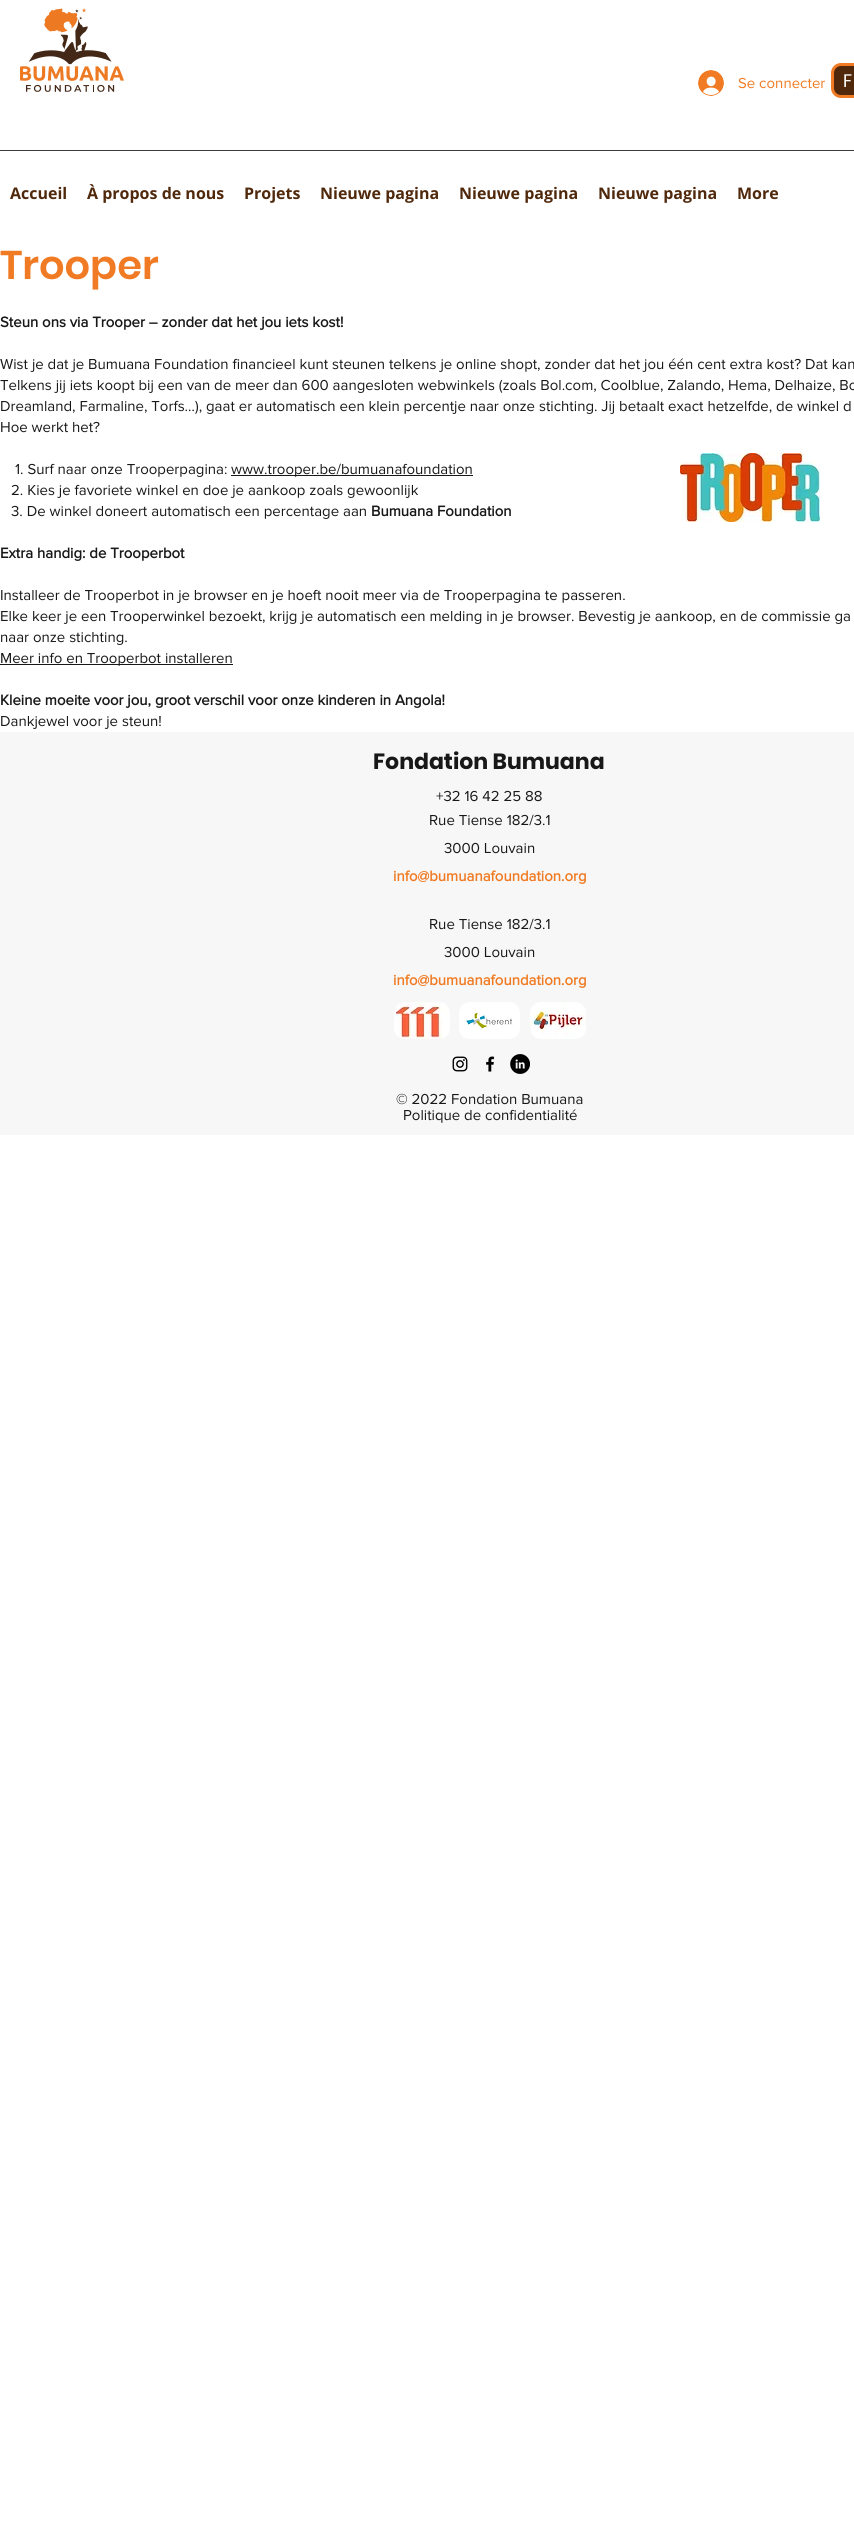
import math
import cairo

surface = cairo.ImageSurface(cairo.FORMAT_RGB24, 854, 2535)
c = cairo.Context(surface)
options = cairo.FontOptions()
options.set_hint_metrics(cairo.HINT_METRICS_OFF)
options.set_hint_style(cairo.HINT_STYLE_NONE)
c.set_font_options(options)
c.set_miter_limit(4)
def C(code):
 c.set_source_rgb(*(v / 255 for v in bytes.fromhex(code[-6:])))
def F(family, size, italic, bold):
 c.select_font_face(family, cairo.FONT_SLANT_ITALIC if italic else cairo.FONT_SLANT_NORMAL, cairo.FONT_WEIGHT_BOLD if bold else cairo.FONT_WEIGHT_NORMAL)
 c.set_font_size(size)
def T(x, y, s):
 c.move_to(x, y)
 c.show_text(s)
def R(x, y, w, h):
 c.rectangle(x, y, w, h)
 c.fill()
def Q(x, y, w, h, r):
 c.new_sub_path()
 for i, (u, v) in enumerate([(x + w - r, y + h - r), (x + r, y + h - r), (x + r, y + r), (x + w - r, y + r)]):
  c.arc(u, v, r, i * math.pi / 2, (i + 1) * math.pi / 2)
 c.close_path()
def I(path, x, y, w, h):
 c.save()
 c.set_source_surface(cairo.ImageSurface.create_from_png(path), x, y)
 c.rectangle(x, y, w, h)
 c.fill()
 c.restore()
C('ffffff')
c.paint()
I('1.png',20,8,104,84)
I('2.png',698,70,26,26)
F('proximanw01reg',15,0,0)
C('f17b24')
T(738,88,'Se connecter')
C('50290c')
Q(832.5,64.5,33,32,8.5)
c.fill_preserve()
C('f17b24')
c.set_line_width(3)
c.stroke()
F('Poppins',18,0,0)
C('ffffff')
T(843,87,'F')
C('3b3b3b')
R(0,150,854,1)
F('Open Sans',16,0,1)
C('50290c')
T(10,199,'Accueil')
T(87,199,'À propos de nous')
T(244,199,'Projets')
T(320,199,'Nieuwe pagina')
T(459,199,'Nieuwe pagina')
T(598,199,'Nieuwe pagina')
T(737,199,'More')
F('Poppins SemiBold',40,0,0)
C('f17b24')
T(0,279,'Trooper')
F('proximanw01reg',15,0,1)
C('181818')
T(0,327,'Steun ons via Trooper – zonder dat het jou iets kost!')
F('proximanw01reg',15,0,0)
T(0,369,'Wist je dat je Bumuana Foundation financieel kunt steunen telkens je online shopt, zonder dat het jou één cent extra kost? Dat kan')
T(0,390,'Telkens jij iets koopt bij een van de meer dan 600 aangesloten webwinkels (zoals Bol.com, Coolblue, Zalando, Hema, Delhaize, Bo')
T(0,411,'Dreamland, Farmaline, Torfs…), gaat er automatisch een klein percentje naar onze stichting. Jij betaalt exact hetzelfde, de winkel d')
T(0,432,'Hoe werkt het?')
T(15,474,'1. Surf naar onze Trooperpagina:')
R(231,475,242,1)
T(231,474,'www.trooper.be/bumuanafoundation')
T(11,495,'2. Kies je favoriete winkel en doe je aankoop zoals gewoonlijk')
T(11,516,'3. De winkel doneert automatisch een percentage aan')
F('proximanw01reg',15,0,1)
T(371,516,'Bumuana Foundation')
T(0,558,'Extra handig: de Trooperbot')
F('proximanw01reg',15,0,0)
T(0,600,'Installeer de Trooperbot in je browser en je hoeft nooit meer via de Trooperpagina te passeren.')
T(0,621,'Elke keer je een Trooperwinkel bezoekt, krijg je automatisch een melding in je browser. Bevestig je aankoop, en de commissie ga')
T(0,642,'naar onze stichting.')
R(0,664,233,1)
T(0,663,'Meer info en Trooperbot installeren')
F('proximanw01reg',15,0,1)
T(0,705,'Kleine moeite voor jou, groot verschil voor onze kinderen in Angola!')
F('proximanw01reg',15,0,0)
T(0,726,'Dankjewel voor je steun!')
I('3.png',680,453,140,69)
C('f7f7f7')
R(0,732,854,403)
F('Poppins',22,0,1)
C('181818')
T(373,769,'Fondation Bumuana')
F('proximanw01reg',15,0,0)
T(436,801,'+32 16 42 25 88')
T(429,825,'Rue Tiense 182/3.1')
T(444,853,'3000 Louvain')
F('proximanw01reg',15,0,1)
C('f17b24')
T(393,881,'info@bumuanafoundation.org')
F('proximanw01reg',15,0,0)
C('181818')
T(429,929,'Rue Tiense 182/3.1')
T(444,957,'3000 Louvain')
F('proximanw01reg',15,0,1)
C('f17b24')
T(393,985,'info@bumuanafoundation.org')
I('4.png',394,1002,56,37)
I('5.png',459,1002,61,37)
I('6.png',530,1002,56,37)
I('7.png',452,1056,16,16)
I('8.png',486,1056,9,16)
I('9.png',510,1054,20,20)
F('proximanw01reg',15,0,0)
C('181818')
T(396,1104,'© 2022 Fondation Bumuana')
T(403,1120,'Politique de confidentialité')
surface.write_to_png('o.png')
